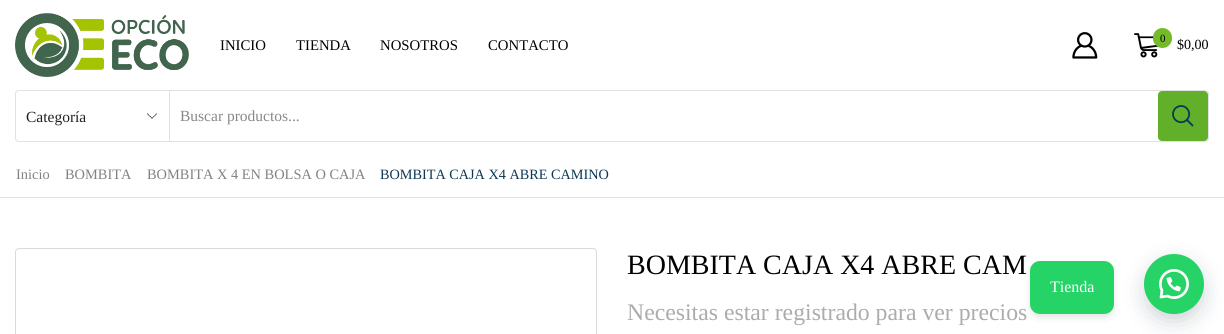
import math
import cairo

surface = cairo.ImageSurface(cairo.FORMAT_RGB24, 1224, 334)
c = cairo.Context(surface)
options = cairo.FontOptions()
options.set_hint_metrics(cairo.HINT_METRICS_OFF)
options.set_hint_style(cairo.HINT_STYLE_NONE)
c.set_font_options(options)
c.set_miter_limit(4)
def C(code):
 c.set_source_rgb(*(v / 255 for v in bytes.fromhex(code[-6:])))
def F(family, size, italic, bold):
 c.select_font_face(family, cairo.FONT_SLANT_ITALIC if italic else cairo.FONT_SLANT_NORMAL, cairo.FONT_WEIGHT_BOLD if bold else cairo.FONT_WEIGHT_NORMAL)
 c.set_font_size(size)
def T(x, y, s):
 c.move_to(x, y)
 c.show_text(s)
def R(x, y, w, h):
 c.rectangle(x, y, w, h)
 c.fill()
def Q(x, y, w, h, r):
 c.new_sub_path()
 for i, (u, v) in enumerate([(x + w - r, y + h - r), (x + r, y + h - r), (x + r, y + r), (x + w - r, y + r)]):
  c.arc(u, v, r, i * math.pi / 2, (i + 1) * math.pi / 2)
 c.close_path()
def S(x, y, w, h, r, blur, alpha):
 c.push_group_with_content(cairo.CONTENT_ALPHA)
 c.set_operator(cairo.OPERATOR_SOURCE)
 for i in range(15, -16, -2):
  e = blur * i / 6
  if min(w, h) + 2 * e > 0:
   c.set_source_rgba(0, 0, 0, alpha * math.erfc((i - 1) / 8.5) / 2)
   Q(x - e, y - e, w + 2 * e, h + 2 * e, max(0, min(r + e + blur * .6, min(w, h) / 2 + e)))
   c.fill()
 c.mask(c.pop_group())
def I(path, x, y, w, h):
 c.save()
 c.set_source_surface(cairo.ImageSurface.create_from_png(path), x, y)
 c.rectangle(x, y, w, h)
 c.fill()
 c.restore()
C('ffffff')
c.paint()
I('1.png',15,13,174,64)
F('Liberation Serif',14.75,0,0)
C('000000')
T(220,50,'INICIO')
T(296,50,'TIENDA')
T(380,50,'NOSOTROS')
T(488,50,'CONTACTO')
I('2.png',1072,32,26,27)
I('3.png',1134,33,25,25)
C('74ba29')
Q(1153,28,19,20,9.5)
c.fill()
F('Liberation Serif',11,0,0)
C('000000')
T(1160,42,'0')
F('Liberation Serif',14,0,0)
T(1177,49,'$0,00')
Q(15.5,90.5,1193,51,3.5)
C('e1e1e1')
c.set_line_width(1)
c.stroke()
I('4.png',147,113,10,6)
R(169,91,1,50)
F('Liberation Serif',15.5,0,0)
C('222222')
T(26,122,'Categoría')
C('888888')
T(180,121,'Buscar productos...')
C('62b02a')
Q(1158,91,50,50,4)
c.fill()
I('5.png',1172,105,22,22)
C('e1e1e1')
R(0,197,1224,1)
F('Liberation Serif',14.4,0,0)
C('828282')
T(16,179,'Inicio')
T(65,179,'BOMBITA')
T(147,179,'BOMBITA X 4 EN BOLSA O CAJA')
F('Liberation Serif',14.25,0,0)
C('0b3954')
T(380,179,'BOMBITA CAJA X4 ABRE CAMINO')
Q(15.5,248.5,581,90,3.5)
C('dadada')
c.stroke()
F('Liberation Serif',28,0,0)
C('000000')
T(627,274,'BOMBITA CAJA X4 ABRE CAM')
F('Liberation Serif',23.75,0,0)
C('acacac')
T(627,320,'Necesitas estar registrado para ver precios')
C('000000')
S(1030,265,84,53,10,3,.1)
C('2d3e4f')
S(1149,267,50,50,25,12.5,.3)
C('25d366')
Q(1030,261,84,53,10)
c.fill()
F('Liberation Serif',16,0,0)
C('ffffff')
T(1050,292,'Tienda')
C('25d366')
c.new_path()
c.arc(1174,284,30,0,2 * math.pi)
c.fill()
I('6.png',1159,269,30,30)
surface.write_to_png('o.png')
